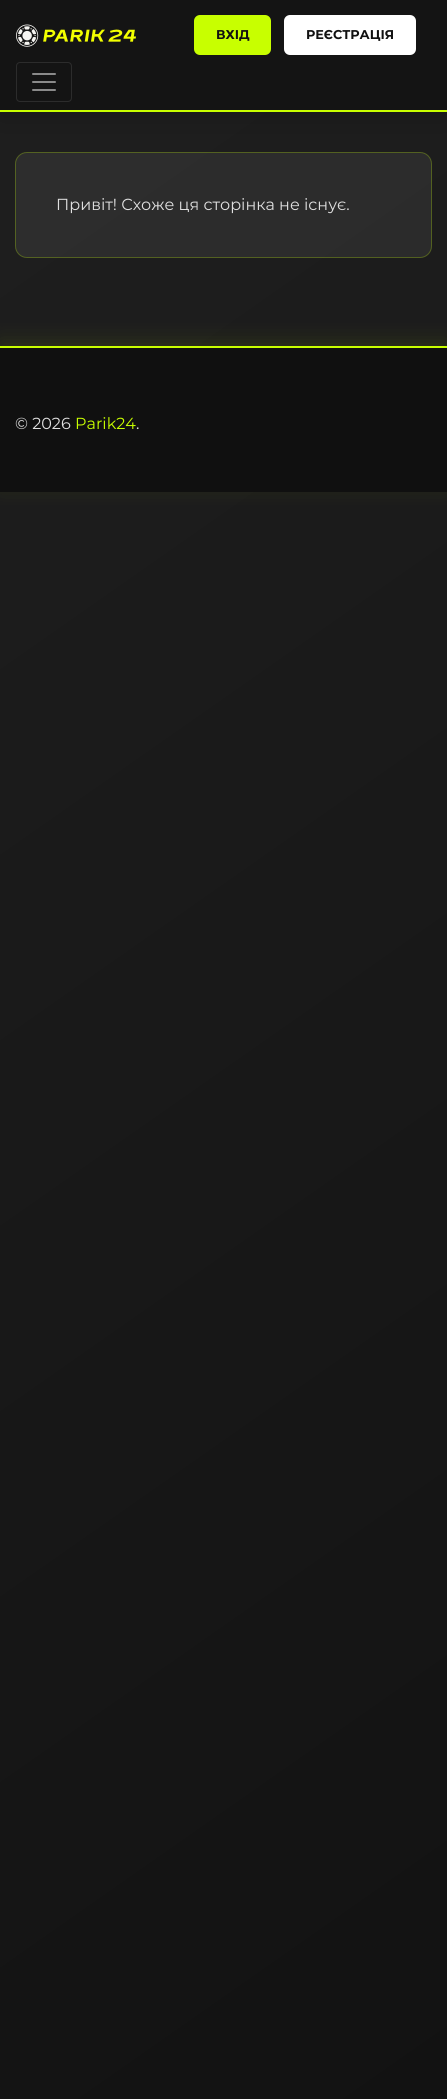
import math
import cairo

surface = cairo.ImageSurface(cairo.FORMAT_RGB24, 447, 2099)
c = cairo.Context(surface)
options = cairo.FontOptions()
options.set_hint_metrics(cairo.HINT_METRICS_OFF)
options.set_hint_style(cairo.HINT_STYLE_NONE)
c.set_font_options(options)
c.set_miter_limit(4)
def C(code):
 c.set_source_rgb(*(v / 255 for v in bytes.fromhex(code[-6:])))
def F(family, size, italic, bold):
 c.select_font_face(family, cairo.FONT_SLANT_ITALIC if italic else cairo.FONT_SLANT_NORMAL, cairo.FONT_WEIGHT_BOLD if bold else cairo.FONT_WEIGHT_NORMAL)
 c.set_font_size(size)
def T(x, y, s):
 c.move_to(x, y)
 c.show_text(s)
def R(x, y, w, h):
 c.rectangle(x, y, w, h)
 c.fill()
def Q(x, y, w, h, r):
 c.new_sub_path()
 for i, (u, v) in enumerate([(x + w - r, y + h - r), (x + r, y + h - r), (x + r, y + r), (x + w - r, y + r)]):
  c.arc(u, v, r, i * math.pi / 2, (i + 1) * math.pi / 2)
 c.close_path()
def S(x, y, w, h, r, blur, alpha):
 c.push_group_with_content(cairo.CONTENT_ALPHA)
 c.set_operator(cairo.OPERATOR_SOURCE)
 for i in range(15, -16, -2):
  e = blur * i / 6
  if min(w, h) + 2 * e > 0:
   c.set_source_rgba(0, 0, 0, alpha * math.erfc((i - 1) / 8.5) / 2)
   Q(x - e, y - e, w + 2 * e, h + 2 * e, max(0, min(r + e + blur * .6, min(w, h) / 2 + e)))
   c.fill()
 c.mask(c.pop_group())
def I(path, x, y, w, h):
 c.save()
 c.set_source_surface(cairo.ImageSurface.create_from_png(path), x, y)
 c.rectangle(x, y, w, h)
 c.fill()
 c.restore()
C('ffffff')
c.paint()
gradient = cairo.LinearGradient(-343,240,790,1859)
gradient.add_color_stop_rgba(0,0.122,0.122,0.122,1)
gradient.add_color_stop_rgba(1,0.071,0.071,0.071,1)
c.set_source(gradient)
R(0,112,447,1987)
c.set_source_rgba(1,1,1,0.07)
Q(15,152,417,106,12)
c.fill()
Q(15.5,152.5,416,105,11.5)
c.set_source_rgba(0.784,1,0,0.25)
c.set_line_width(1)
c.stroke()
C('000000')
S(0,4,447,112,0,15,.2)
C('141414')
R(0,0,447,110)
C('c8ff00')
R(0,110,447,2)
I('1.png',16,24,120,23)
Q(194,15,77,40,6)
c.fill()
F('Montserrat',12.75,0,1)
C('111111')
T(216,39,'ВХІД')
C('ffffff')
Q(284,15,132,40,6)
c.fill()
C('111111')
T(306,39,'РЕЄСТРАЦІЯ')
Q(16.5,62.5,55,39,3.5)
C('2c2c2c')
c.stroke()
I('2.png',32,73,24,18)
F('Montserrat',16,0,0)
C('e0e0e0')
T(56,210,'Привіт! Схоже ця сторінка не існує.')
C('c8ff00')
S(0,341,447,146,0,10,.1)
C('101010')
R(0,348,447,144)
C('c8ff00')
R(0,346,447,2)
C('e0e0e0')
T(15,429,'© 2026')
C('c8ff00')
T(75,429,'Parik24')
C('e0e0e0')
T(136,429,'.')
surface.write_to_png('o.png')
